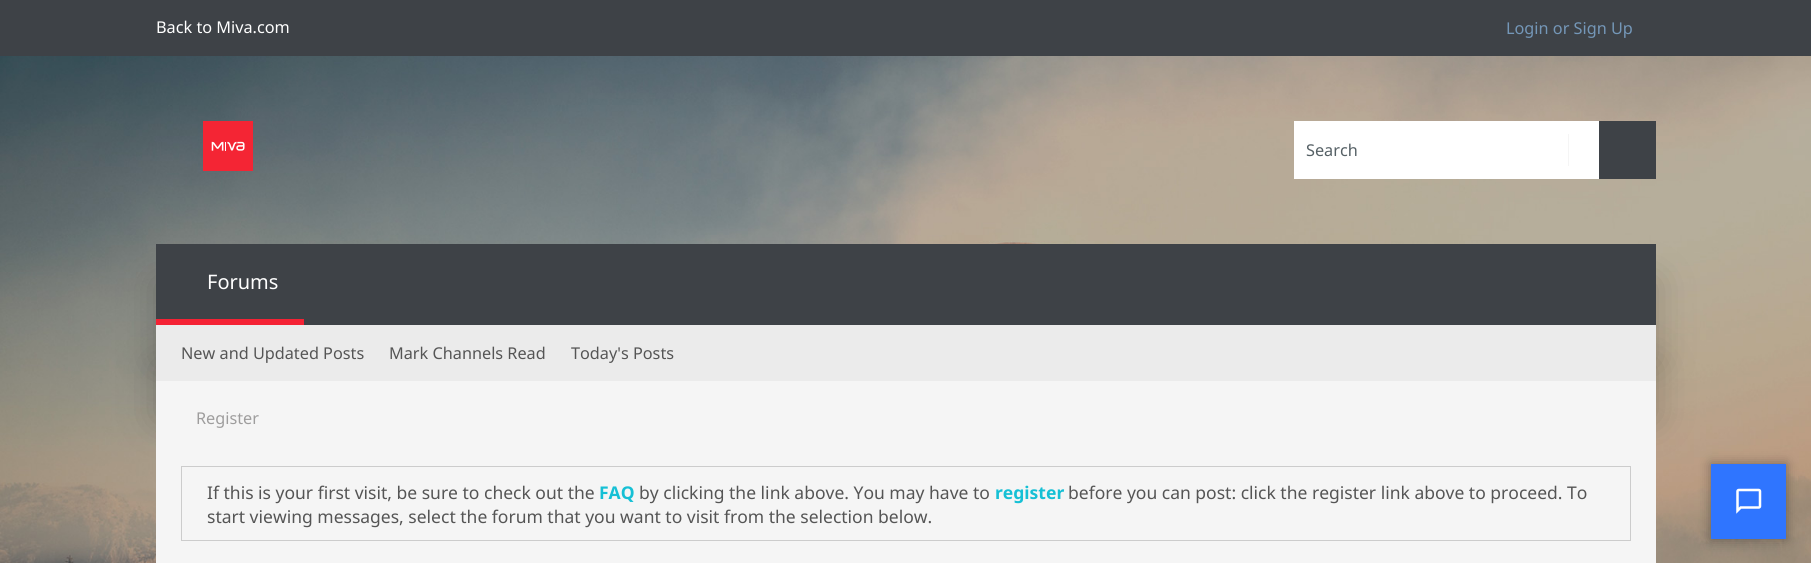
import math
import cairo

surface = cairo.ImageSurface(cairo.FORMAT_RGB24, 1811, 563)
c = cairo.Context(surface)
options = cairo.FontOptions()
options.set_hint_metrics(cairo.HINT_METRICS_OFF)
options.set_hint_style(cairo.HINT_STYLE_NONE)
c.set_font_options(options)
c.set_miter_limit(4)
def C(code):
 c.set_source_rgb(*(v / 255 for v in bytes.fromhex(code[-6:])))
def F(family, size, italic, bold):
 c.select_font_face(family, cairo.FONT_SLANT_ITALIC if italic else cairo.FONT_SLANT_NORMAL, cairo.FONT_WEIGHT_BOLD if bold else cairo.FONT_WEIGHT_NORMAL)
 c.set_font_size(size)
def T(x, y, s):
 c.move_to(x, y)
 c.show_text(s)
def R(x, y, w, h):
 c.rectangle(x, y, w, h)
 c.fill()
def Q(x, y, w, h, r):
 c.new_sub_path()
 for i, (u, v) in enumerate([(x + w - r, y + h - r), (x + r, y + h - r), (x + r, y + r), (x + w - r, y + r)]):
  c.arc(u, v, r, i * math.pi / 2, (i + 1) * math.pi / 2)
 c.close_path()
def S(x, y, w, h, r, blur, alpha):
 c.push_group_with_content(cairo.CONTENT_ALPHA)
 c.set_operator(cairo.OPERATOR_SOURCE)
 for i in range(15, -16, -2):
  e = blur * i / 6
  if min(w, h) + 2 * e > 0:
   c.set_source_rgba(0, 0, 0, alpha * math.erfc((i - 1) / 8.5) / 2)
   Q(x - e, y - e, w + 2 * e, h + 2 * e, max(0, min(r + e + blur * .6, min(w, h) / 2 + e)))
   c.fill()
 c.mask(c.pop_group())
def I(path, x, y, w, h):
 c.save()
 c.set_source_surface(cairo.ImageSurface.create_from_png(path), x, y)
 c.rectangle(x, y, w, h)
 c.fill()
 c.restore()
C('ffffff')
c.paint()
I('1.png',0,56,1811,507)
C('3e4247')
R(0,0,1811,56)
F('Noto Sans',16.25,0,0)
C('ffffff')
T(156,33,'Back to Miva.com')
C('7497b8')
T(1506,34,'Login or Sign Up')
I('2.png',203,121,50,50)
C('ffffff')
R(1294,121,305,58)
C('556065')
T(1306,156,'Search')
C('f5f5f5')
R(1568,134,1,32)
C('3e4247')
R(1599,121,57,58)
C('000000')
S(156,281,1500,82,0,19,.2)
C('3e4247')
R(156,244,1500,81)
C('000000')
S(156,363,1500,56,0,19,.2)
C('f42234')
R(156,319,148,6)
F('Noto Sans',20,0,0)
C('ffffff')
T(207,289,'Forums')
C('ebebeb')
R(156,325,1500,56)
F('Noto Sans',16.25,0,0)
C('555555')
T(181,359,'New and Updated Posts')
T(389,359,'Mark Channels Read')
T(571,359,'Today\'s Posts')
C('f5f5f5')
R(156,381,1500,60)
C('9e9d9d')
T(196,424,'Register')
C('f5f5f5')
R(156,441,1500,122)
c.rectangle(181.5,466.5,1449,74)
C('cccccc')
c.set_line_width(1)
c.stroke()
F('Noto Sans',17.5,0,0)
C('555555')
T(207,499,'If this is your first visit, be sure to check out the')
F('Noto Sans',17.5,0,1)
C('16c0d5')
T(599,499,'FAQ')
F('Noto Sans',17.5,0,0)
C('555555')
T(639,499,'by clicking the link above. You may have to')
F('Noto Sans',17.5,0,1)
C('16c0d5')
T(995,499,'register')
F('Noto Sans',17.5,0,0)
C('555555')
T(1068,499,'before you can post: click the register link above to proceed. To')
T(207,523,'start viewing messages, select the forum that you want to visit from the selection below.')
C('000000')
S(1711,464,75,75,0,6,.35)
C('2f75ff')
R(1711,464,75,75)
I('3.png',1736,488,26,26)
surface.write_to_png('o.png')
